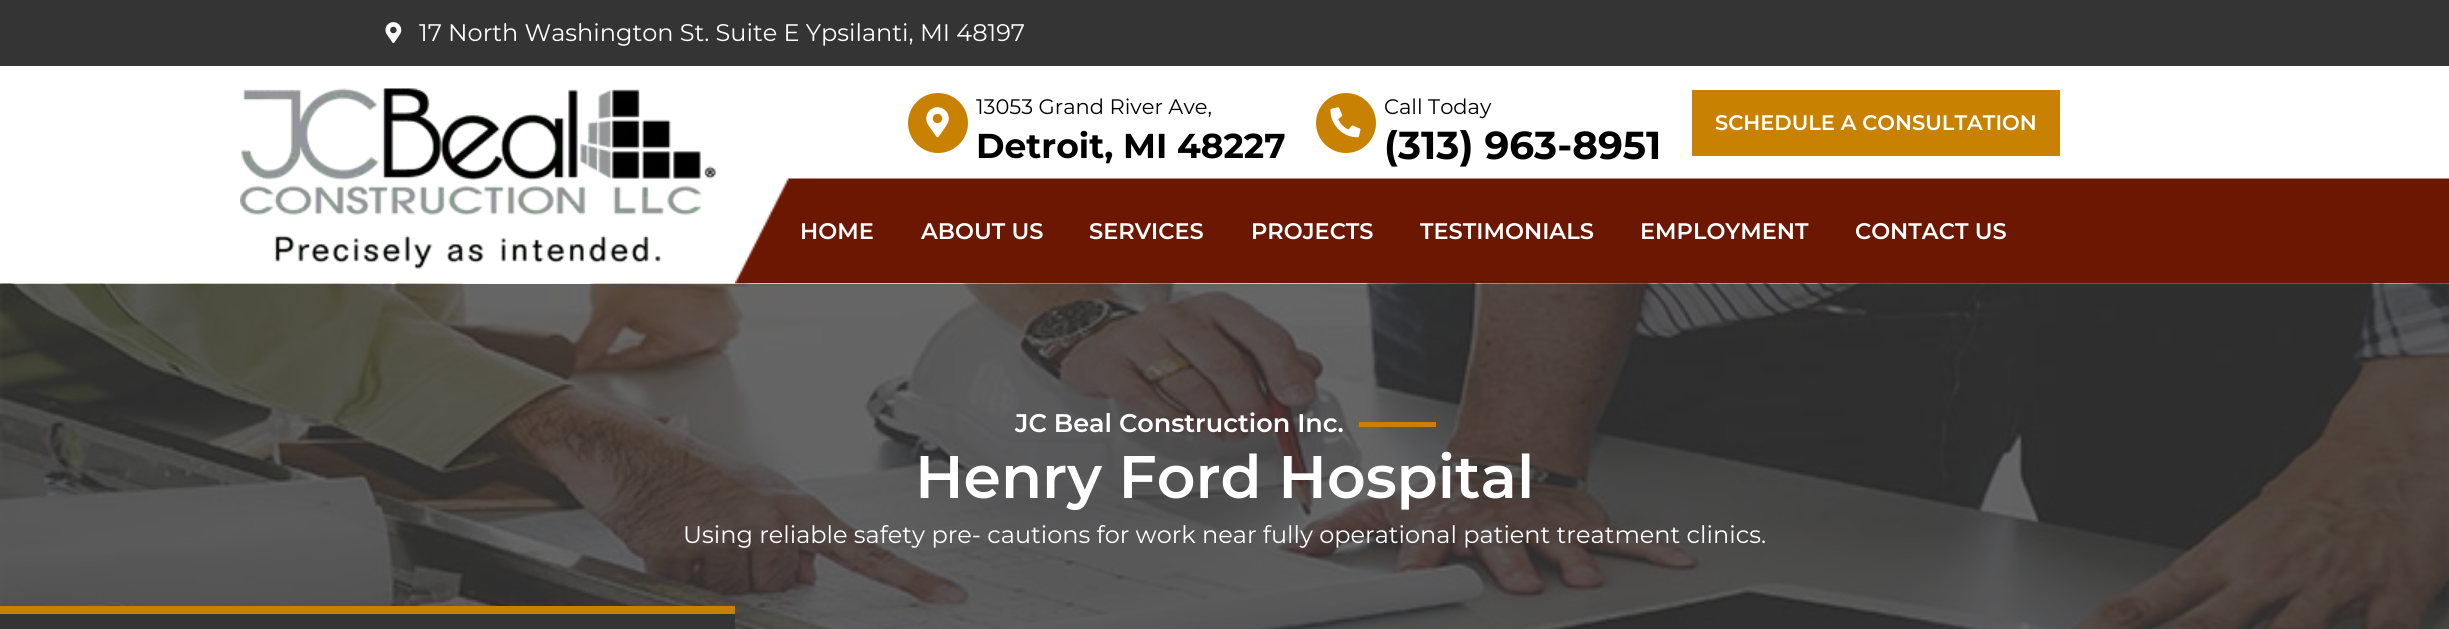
import math
import cairo

surface = cairo.ImageSurface(cairo.FORMAT_RGB24, 2449, 629)
c = cairo.Context(surface)
options = cairo.FontOptions()
options.set_hint_metrics(cairo.HINT_METRICS_OFF)
options.set_hint_style(cairo.HINT_STYLE_NONE)
c.set_font_options(options)
c.set_miter_limit(4)
def C(code):
 c.set_source_rgb(*(v / 255 for v in bytes.fromhex(code[-6:])))
def F(family, size, italic, bold):
 c.select_font_face(family, cairo.FONT_SLANT_ITALIC if italic else cairo.FONT_SLANT_NORMAL, cairo.FONT_WEIGHT_BOLD if bold else cairo.FONT_WEIGHT_NORMAL)
 c.set_font_size(size)
def T(x, y, s):
 c.move_to(x, y)
 c.show_text(s)
def R(x, y, w, h):
 c.rectangle(x, y, w, h)
 c.fill()
def I(path, x, y, w, h):
 c.save()
 c.set_source_surface(cairo.ImageSurface.create_from_png(path), x, y)
 c.rectangle(x, y, w, h)
 c.fill()
 c.restore()
C('ffffff')
c.paint()
C('343434')
R(0,0,2449,66)
I('1.png',385,22,17,22)
F('Montserrat',24,0,0)
C('ffffff')
T(419,41,'17 North Washington St. Suite E Ypsilanti, MI 48197')
C('c88101')
c.new_path()
c.arc(938,123,30,0,2 * math.pi)
c.fill()
I('2.png',926,107,23,31)
F('Montserrat',21,0,0)
C('000000')
T(976,114,'13053 Grand River Ave,')
F('Montserrat',34.5,0,1)
T(976,158,'Detroit, MI 48227')
C('c88101')
c.new_path()
c.arc(1346,123,30,0,2 * math.pi)
c.fill()
I('3.png',1330,107,31,31)
F('Montserrat',21,0,0)
C('000000')
T(1384,114,'Call Today')
F('Montserrat',39,0,1)
T(1384,159,'(313) 963-8951')
C('c88101')
R(1692,90,368,66)
F('Montserrat SemiBold',21,0,0)
C('ffffff')
T(1715,130,'SCHEDULE A CONSULTATION')
I('4.png',240,88,476,181)
I('5.png',735,178,1714,106)
F('Montserrat SemiBold',22.5,0,0)
T(800,239,'HOME')
T(921,239,'ABOUT US')
T(1089,239,'SERVICES')
T(1251,239,'PROJECTS')
T(1420,239,'TESTIMONIALS')
T(1640,239,'EMPLOYMENT')
T(1855,239,'CONTACT US')
I('6.png',0,283,2449,346)
F('Montserrat SemiBold',25.5,0,0)
T(1015,432,'JC Beal Construction Inc.')
C('c88101')
R(1359,422,77,5)
F('Montserrat SemiBold',60,0,0)
C('ffffff')
T(915,498,'Henry Ford Hospital')
F('Montserrat',24,0,0)
T(683,543,'Using reliable safety pre- cautions for work near fully operational patient treatment clinics.')
C('343434')
R(0,614,735,15)
C('c88101')
R(0,606,735,8)
surface.write_to_png('o.png')
